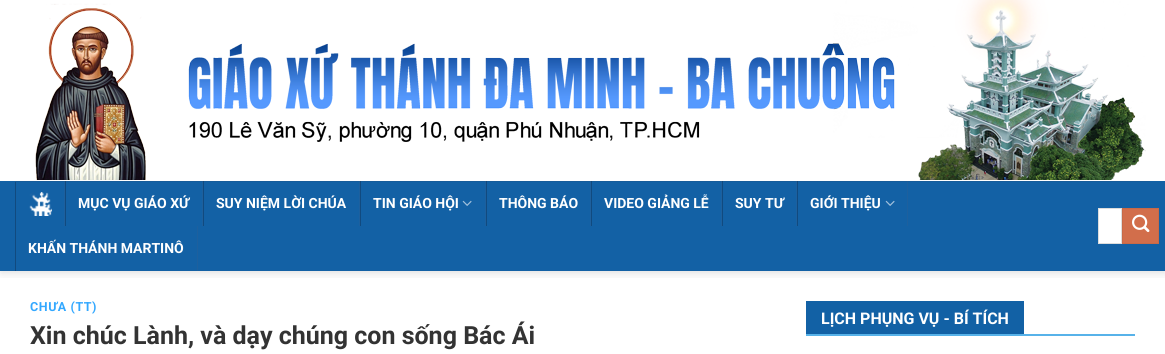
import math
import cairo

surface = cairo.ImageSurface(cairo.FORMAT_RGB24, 1165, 354)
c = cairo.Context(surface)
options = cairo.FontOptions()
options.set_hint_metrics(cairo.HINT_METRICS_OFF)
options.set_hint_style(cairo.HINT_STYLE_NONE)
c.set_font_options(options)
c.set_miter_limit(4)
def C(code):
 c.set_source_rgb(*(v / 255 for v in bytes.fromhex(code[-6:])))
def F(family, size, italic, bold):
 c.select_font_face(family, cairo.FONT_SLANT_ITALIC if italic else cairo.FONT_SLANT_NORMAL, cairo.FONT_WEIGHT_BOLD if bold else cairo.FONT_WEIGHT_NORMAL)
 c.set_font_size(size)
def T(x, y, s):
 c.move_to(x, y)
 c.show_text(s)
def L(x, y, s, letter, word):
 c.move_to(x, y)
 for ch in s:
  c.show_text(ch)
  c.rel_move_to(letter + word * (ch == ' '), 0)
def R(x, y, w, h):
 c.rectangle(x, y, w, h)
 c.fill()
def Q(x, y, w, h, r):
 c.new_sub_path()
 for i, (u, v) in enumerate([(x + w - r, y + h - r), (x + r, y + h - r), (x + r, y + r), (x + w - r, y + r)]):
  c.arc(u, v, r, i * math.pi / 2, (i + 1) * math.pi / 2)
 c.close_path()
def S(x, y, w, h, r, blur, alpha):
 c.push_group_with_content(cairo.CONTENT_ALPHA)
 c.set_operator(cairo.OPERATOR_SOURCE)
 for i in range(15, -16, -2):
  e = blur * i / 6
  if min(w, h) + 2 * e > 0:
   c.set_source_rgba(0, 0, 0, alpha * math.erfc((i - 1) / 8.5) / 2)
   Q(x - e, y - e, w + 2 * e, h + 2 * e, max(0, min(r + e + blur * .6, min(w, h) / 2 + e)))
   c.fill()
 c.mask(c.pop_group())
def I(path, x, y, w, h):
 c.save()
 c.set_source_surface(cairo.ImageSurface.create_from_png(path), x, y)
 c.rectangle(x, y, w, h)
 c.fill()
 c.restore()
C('ffffff')
c.paint()
c.save()
c.rectangle(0,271,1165,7)
c.clip()
C('000000')
S(1,1,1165,271,0,5,.15)
c.restore()
I('1.png',35,0,1111,180)
C('1361a5')
R(0,181,1165,90)
C('165c9a')
R(15,181,1135,1)
C('1d609e')
R(64,182,1,44)
C('114a7f')
R(15,182,1,89)
I('2.png',29,192,23,24)
C('1d609e')
R(202,181,1,45)
C('1f5c93')
R(202,181,1,1)
C('114a7f')
R(65,181,1,45)
C('144877')
R(65,181,1,1)
F('Roboto',14,0,1)
C('ffffff')
T(78,208,'MỤC VỤ GIÁO XỨ')
C('1d609e')
R(359,181,1,45)
C('1f5c93')
R(359,181,1,1)
C('114a7f')
R(203,181,1,45)
C('144877')
R(203,181,1,1)
C('ffffff')
T(216,208,'SUY NIỆM LỜI CHÚA')
C('1d609e')
R(485,181,1,45)
C('1f5c93')
R(485,181,1,1)
C('114a7f')
R(360,181,1,45)
C('144877')
R(360,181,1,1)
C('ffffff')
T(373,208,'TIN GIÁO HỘI')
I('3.png',462,200,10,6)
C('1d609e')
R(590,181,1,45)
C('1f5c93')
R(590,181,1,1)
C('114a7f')
R(486,181,1,45)
C('144877')
R(486,181,1,1)
C('ffffff')
T(499,208,'THÔNG BÁO')
C('1d609e')
R(721,181,1,45)
C('1f5c93')
R(721,181,1,1)
C('114a7f')
R(591,181,1,45)
C('144877')
R(591,181,1,1)
C('ffffff')
T(604,208,'VIDEO GIẢNG LỄ')
C('1d609e')
R(796,181,1,45)
C('1f5c93')
R(796,181,1,1)
C('114a7f')
R(722,181,1,45)
C('144877')
R(722,181,1,1)
C('ffffff')
T(735,208,'SUY TƯ')
C('1d609e')
R(907,181,1,45)
C('1f5c93')
R(907,181,1,1)
C('114a7f')
R(797,181,1,45)
C('144877')
R(797,181,1,1)
C('ffffff')
T(810,208,'GIỚI THIỆU')
I('3.png',885,200,10,6)
C('1d609e')
R(197,226,1,45)
C('ffffff')
T(28,253,'KHẤN THÁNH MARTINÔ')
c.rectangle(1098.5,208.5,23,35)
c.fill_preserve()
C('dddddd')
c.set_line_width(1)
c.stroke()
C('d26e4b')
c.rectangle(1122.5,208.5,36,35)
c.fill_preserve()
C('c86947')
c.stroke()
I('4.png',1132,214,18,19)
F('Roboto',12.5,0,1)
C('33a8ff')
L(30,311,'CHƯA (TT)',.6,0)
F('Roboto',25,0,1)
C('333333')
T(30,344,'Xin chúc Lành, và dạy chúng con sống Bác Ái')
C('57b2e9')
R(806,334,329,2)
C('1261a5')
R(806,301,218,33)
F('Roboto',16,0,1)
C('ffffff')
T(821,324,'LỊCH PHỤNG VỤ - BÍ TÍCH')
surface.write_to_png('o.png')
